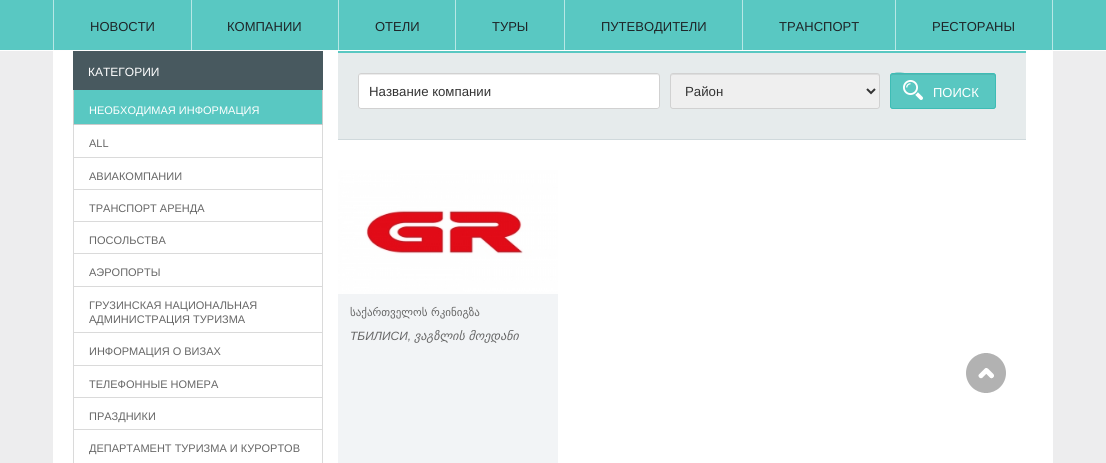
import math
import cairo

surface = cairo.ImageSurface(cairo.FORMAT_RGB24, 1106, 463)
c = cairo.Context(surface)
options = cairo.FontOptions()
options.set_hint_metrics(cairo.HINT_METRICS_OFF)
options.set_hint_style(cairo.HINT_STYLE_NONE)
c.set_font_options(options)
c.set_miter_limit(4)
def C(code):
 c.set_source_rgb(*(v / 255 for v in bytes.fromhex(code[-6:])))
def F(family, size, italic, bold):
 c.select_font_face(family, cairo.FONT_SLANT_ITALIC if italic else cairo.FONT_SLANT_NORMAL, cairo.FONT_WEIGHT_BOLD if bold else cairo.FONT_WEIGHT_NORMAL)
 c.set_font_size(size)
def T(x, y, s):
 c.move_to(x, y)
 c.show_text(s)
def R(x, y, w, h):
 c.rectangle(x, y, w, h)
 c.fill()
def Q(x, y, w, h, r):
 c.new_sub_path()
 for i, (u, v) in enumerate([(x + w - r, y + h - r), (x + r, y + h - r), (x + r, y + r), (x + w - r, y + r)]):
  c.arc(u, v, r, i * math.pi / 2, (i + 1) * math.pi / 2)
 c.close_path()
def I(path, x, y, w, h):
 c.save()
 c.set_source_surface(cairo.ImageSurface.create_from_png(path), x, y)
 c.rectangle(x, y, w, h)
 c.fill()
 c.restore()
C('ededee')
c.paint()
C('59c8c2')
R(0,0,1106,50)
C('ffffff')
R(0,50,1106,1)
C('b7e7e5')
R(1052,0,1,50)
R(53,0,1,50)
F('Liberation Sans',13,0,0)
C('1e2528')
T(90,31,'НОВОСТИ')
C('b7e7e5')
R(191,0,1,50)
C('1e2528')
T(227,31,'КОМПАНИИ')
C('b7e7e5')
R(338,0,1,50)
C('1e2528')
T(375,31,'ОТЕЛИ')
C('b7e7e5')
R(455,0,1,50)
C('1e2528')
T(492,31,'ТУРЫ')
C('b7e7e5')
R(564,0,1,50)
C('1e2528')
T(601,31,'ПУТЕВОДИТЕЛИ')
C('b7e7e5')
R(742,0,1,50)
C('1e2528')
T(779,31,'ТРАНСПОРТ')
C('b7e7e5')
R(895,0,1,50)
C('1e2528')
T(932,31,'РЕСТОРАНЫ')
C('ffffff')
R(53,51,1000,412)
C('48595f')
R(73,51,250,39)
F('Liberation Sans',12,0,0)
C('ffffff')
T(88,76,'КАТЕГОРИИ')
C('59c8c2')
R(74,90,248,34)
C('cbcbcb')
R(322,90,1,35)
R(73,124,250,1)
R(73,90,1,35)
F('Liberation Sans',11,0,0)
C('ffffff')
T(89,114,'НЕОБХОДИМАЯ ИНФОРМАЦИЯ')
C('dadada')
R(322,125,1,338)
R(73,125,1,338)
R(74,157,248,1)
C('666666')
T(89,147,'ALL')
C('dadada')
R(74,189,248,1)
C('666666')
T(89,180,'АВИАКОМПАНИИ')
C('dadada')
R(74,221,248,1)
C('666666')
T(89,212,'ТРАНСПОРТ АРЕНДА')
C('dadada')
R(74,253,248,1)
C('666666')
T(89,244,'ПОСОЛЬСТВА')
C('dadada')
R(74,286,248,1)
C('666666')
T(89,276,'АЭРОПОРТЫ')
C('dadada')
R(74,332,248,1)
C('666666')
T(89,309,'ГРУЗИНСКАЯ НАЦИОНАЛЬНАЯ')
T(89,323,'АДМИНИСТРАЦИЯ ТУРИЗМА')
C('dadada')
R(74,365,248,1)
C('666666')
T(89,355,'ИНФОРМАЦИЯ О ВИЗАХ')
C('dadada')
R(74,397,248,1)
C('666666')
T(89,388,'ТЕЛЕФОННЫЕ НОМЕРА')
C('dadada')
R(74,429,248,1)
C('666666')
T(89,420,'ПРАЗДНИКИ')
T(89,452,'ДЕПАРТАМЕНТ ТУРИЗМА И КУРОРТОВ')
C('e6ebec')
R(338,53,688,86)
C('59c8c2')
R(338,51,688,2)
C('d0d9dc')
R(338,139,688,1)
C('ffffff')
Q(358,73,302,36,3)
c.fill()
C('ececec')
c.new_path()
c.move_to(361,75)
c.line_to(657,75)
c.curve_to(658,75,659,76,659,77)
c.curve_to(659,76,659,74,657,74)
c.line_to(360,74)
c.line_to(359,77)
c.curve_to(359,76,360,75,361,75)
c.close_path()
c.fill()
Q(358.5,73.5,301,35,2.5)
C('d1d1d1')
c.set_line_width(1)
c.stroke()
F('Liberation Sans',13.25,0,0)
C('333333')
T(369,96,'Название компании')
C('efefef')
Q(670,73,210,36,3)
c.fill()
C('dddddd')
c.new_path()
c.move_to(673,75)
c.line_to(877,75)
c.line_to(879,76)
c.line_to(879,77)
c.curve_to(879,76,879,74,877,74)
c.line_to(673,74)
c.curve_to(671,74,671,76,671,77)
c.curve_to(671,76,672,75,673,75)
c.close_path()
c.fill()
Q(670.5,73.5,209,35,2.5)
C('d1d1d1')
c.stroke()
c.new_path()
c.move_to(867,89)
c.line_to(871,93)
c.line_to(875,89)
C('333333')
c.set_line_width(2)
c.stroke()
T(685,96,'Район')
C('59c7c1')
Q(890,73,106,36,3)
c.fill()
I('1.png',903,80,20,20)
C('52b8b3')
c.new_path()
c.move_to(893,75)
c.line_to(993,75)
c.curve_to(994,75,995,76,995,77)
c.curve_to(995,76,995,74,993,74)
c.line_to(910,74)
c.curve_to(909,74,891,69,891,77)
c.curve_to(891,76,892,75,893,75)
c.close_path()
c.fill()
Q(890.5,73.5,105,35,2.5)
C('3ebcb5')
c.set_line_width(1)
c.stroke()
F('Liberation Sans',13,0,0)
C('ffffff')
T(933,97,'ПОИСК')
C('f2f4f6')
R(338,294,220,169)
I('2.png',338,170,220,124)
F('DejaVu Sans',11,0,0)
C('666666')
T(350,316,'საქართველოს რკინიგზა')
F('Liberation Sans',12,1,0)
T(350,340,'ТБИЛИСИ,')
F('DejaVu Sans',12,1,0)
T(414,340,'ვაგზლის მოედანი')
I('3.png',966,353,40,40)
surface.write_to_png('o.png')
